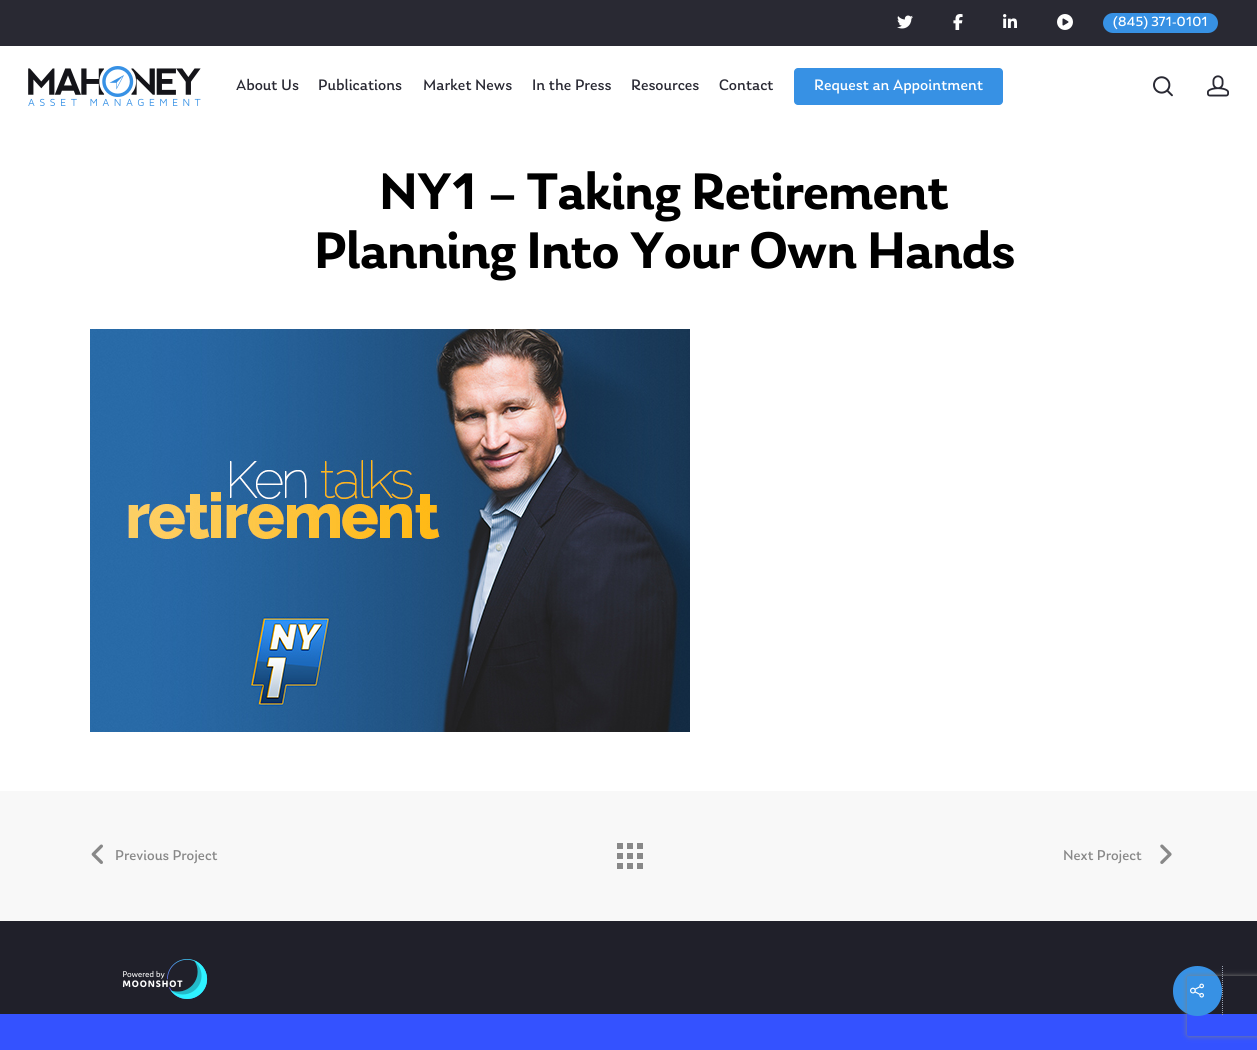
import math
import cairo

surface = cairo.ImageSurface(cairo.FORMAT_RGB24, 1257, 1050)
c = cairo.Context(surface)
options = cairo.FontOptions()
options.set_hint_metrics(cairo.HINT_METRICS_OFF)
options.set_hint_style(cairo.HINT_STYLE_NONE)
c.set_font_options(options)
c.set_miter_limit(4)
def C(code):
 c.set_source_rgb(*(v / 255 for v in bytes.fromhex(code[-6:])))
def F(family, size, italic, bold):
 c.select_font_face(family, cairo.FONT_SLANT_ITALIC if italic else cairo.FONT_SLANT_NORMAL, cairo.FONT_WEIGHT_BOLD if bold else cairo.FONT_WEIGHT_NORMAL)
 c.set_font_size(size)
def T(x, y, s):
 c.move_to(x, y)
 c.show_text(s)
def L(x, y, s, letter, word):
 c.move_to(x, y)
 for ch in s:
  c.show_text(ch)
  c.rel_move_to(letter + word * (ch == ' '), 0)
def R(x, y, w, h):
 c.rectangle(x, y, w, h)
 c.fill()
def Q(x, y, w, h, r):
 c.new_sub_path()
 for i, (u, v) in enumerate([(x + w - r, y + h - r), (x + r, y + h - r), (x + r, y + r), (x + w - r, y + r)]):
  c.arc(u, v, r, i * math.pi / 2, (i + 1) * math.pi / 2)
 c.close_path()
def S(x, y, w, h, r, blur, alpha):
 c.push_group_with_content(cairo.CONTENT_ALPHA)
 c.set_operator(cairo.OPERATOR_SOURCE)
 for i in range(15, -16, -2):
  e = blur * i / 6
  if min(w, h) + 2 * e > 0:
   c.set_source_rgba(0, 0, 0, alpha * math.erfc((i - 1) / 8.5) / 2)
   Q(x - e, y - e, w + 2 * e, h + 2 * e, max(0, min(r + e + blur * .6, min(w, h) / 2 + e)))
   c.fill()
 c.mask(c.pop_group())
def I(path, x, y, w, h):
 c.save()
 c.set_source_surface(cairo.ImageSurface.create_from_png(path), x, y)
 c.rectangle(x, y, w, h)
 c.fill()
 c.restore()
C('3452ff')
c.paint()
C('ffffff')
R(0,46,1257,745)
C('292933')
R(0,0,1257,46)
I('1.png',897,15,16,14)
I('2.png',953,14,10,16)
I('3.png',1003,14,14,14)
I('4.png',1057,14,16,16)
C('3791e4')
Q(1103,13,115,20,10)
c.fill()
F('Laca',14,0,0)
C('ffffff')
T(1113,26,'(845) 371-0101')
I('5.png',28,66,173,40)
F('Laca',16,0,0)
C('292933')
T(236,90,'About Us')
T(318,90,'Publications')
T(423,90,'Market News')
T(532,90,'In the Press')
T(631,90,'Resources')
T(719,90,'Contact')
C('3791e4')
Q(794,68,209,37,4)
c.fill()
C('ffffff')
T(814,90,'Request an Appointment')
I('6.png',1153,76,20,21)
I('7.png',1207,75,22,22)
F('Laca SemiBold',54,0,0)
C('000000')
L(379,209,'NY1 – Taking Retirement',-1,0)
L(314,268,'Planning Into Your Own Hands',-1,0)
I('8.png',90,329,600,403)
C('f8f8f8')
R(0,791,1257,130)
C('888888')
R(637,863,6,6)
R(627,863,6,6)
R(617,843,6,6)
R(627,843,6,6)
R(637,843,6,6)
R(637,853,6,6)
R(617,863,6,6)
R(617,853,6,6)
R(627,853,6,6)
I('9.png',91,844,12,20)
F('Laca',15,0,0)
T(115,860,'Previous Project')
T(1063,860,'Next Project')
I('10.png',1160,844,12,20)
C('20202a')
R(0,921,1257,93)
I('11.png',122,959,86,40)
C('3791e4')
Q(1173,966,49,50,24.5)
c.fill()
I('12.png',1190,983,14,15)
c.new_path()
c.move_to(1222.5,966)
c.line_to(1222.5,1016)
C('9aa3b3')
c.set_line_width(1)
c.set_dash([1,1])
c.stroke()
c.save()
c.set_fill_rule(cairo.FILL_RULE_EVEN_ODD)
c.new_path()
c.move_to(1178,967)
c.line_to(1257,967)
c.line_to(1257,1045)
c.line_to(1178,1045)
c.close_path()
c.move_to(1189,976)
c.line_to(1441,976)
c.curve_to(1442,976,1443,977,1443,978)
c.line_to(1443,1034)
c.curve_to(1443,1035,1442,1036,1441,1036)
c.line_to(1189,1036)
c.curve_to(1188,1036,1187,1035,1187,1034)
c.line_to(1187,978)
c.curve_to(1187,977,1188,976,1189,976)
c.close_path()
c.clip()
C('808080')
S(1187,976,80,60,2,2.5,1)
c.restore()
surface.write_to_png('o.png')
